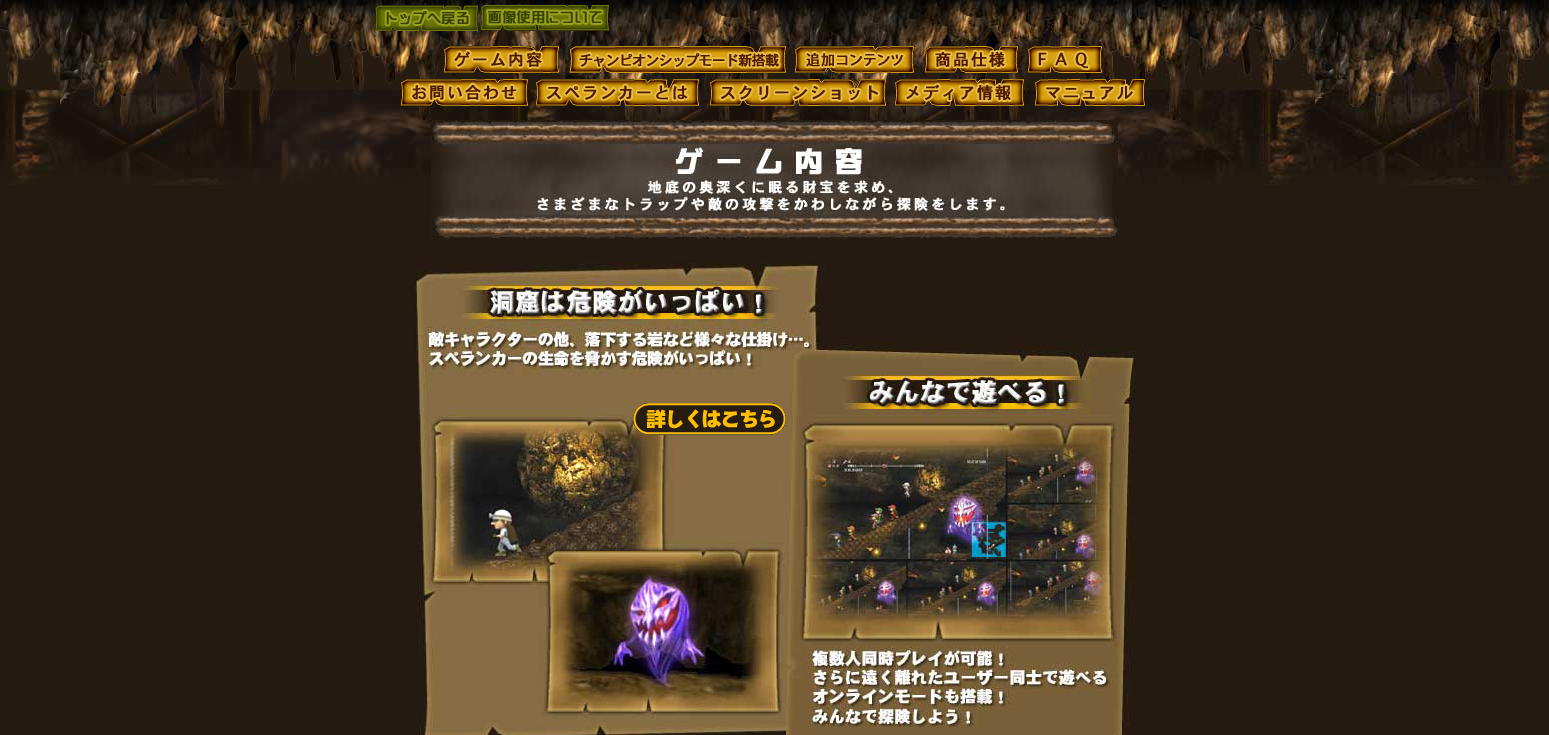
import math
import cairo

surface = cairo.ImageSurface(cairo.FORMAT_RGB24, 1549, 735)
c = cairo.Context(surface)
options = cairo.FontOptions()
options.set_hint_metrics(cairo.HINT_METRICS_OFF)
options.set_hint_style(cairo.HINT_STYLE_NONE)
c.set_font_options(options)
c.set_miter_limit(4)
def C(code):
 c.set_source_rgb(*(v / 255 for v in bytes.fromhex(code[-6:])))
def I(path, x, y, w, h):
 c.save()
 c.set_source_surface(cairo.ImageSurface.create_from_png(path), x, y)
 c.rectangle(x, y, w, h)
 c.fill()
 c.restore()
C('251a11')
c.paint()
I('1.png',0,0,1549,185)
I('2.png',375,5,103,26)
I('3.png',481,5,128,26)
I('4.png',443,46,117,27)
I('5.png',569,46,218,27)
I('6.png',794,46,121,27)
I('7.png',924,46,95,27)
I('8.png',1027,46,76,27)
I('9.png',400,79,129,27)
I('10.png',535,79,165,27)
I('11.png',709,79,178,27)
I('12.png',894,79,131,27)
I('13.png',1034,79,112,27)
I('14.png',431,120,687,119)
I('15.png',415,263,720,472)
I('16.png',633,403,153,32)
surface.write_to_png('o.png')
